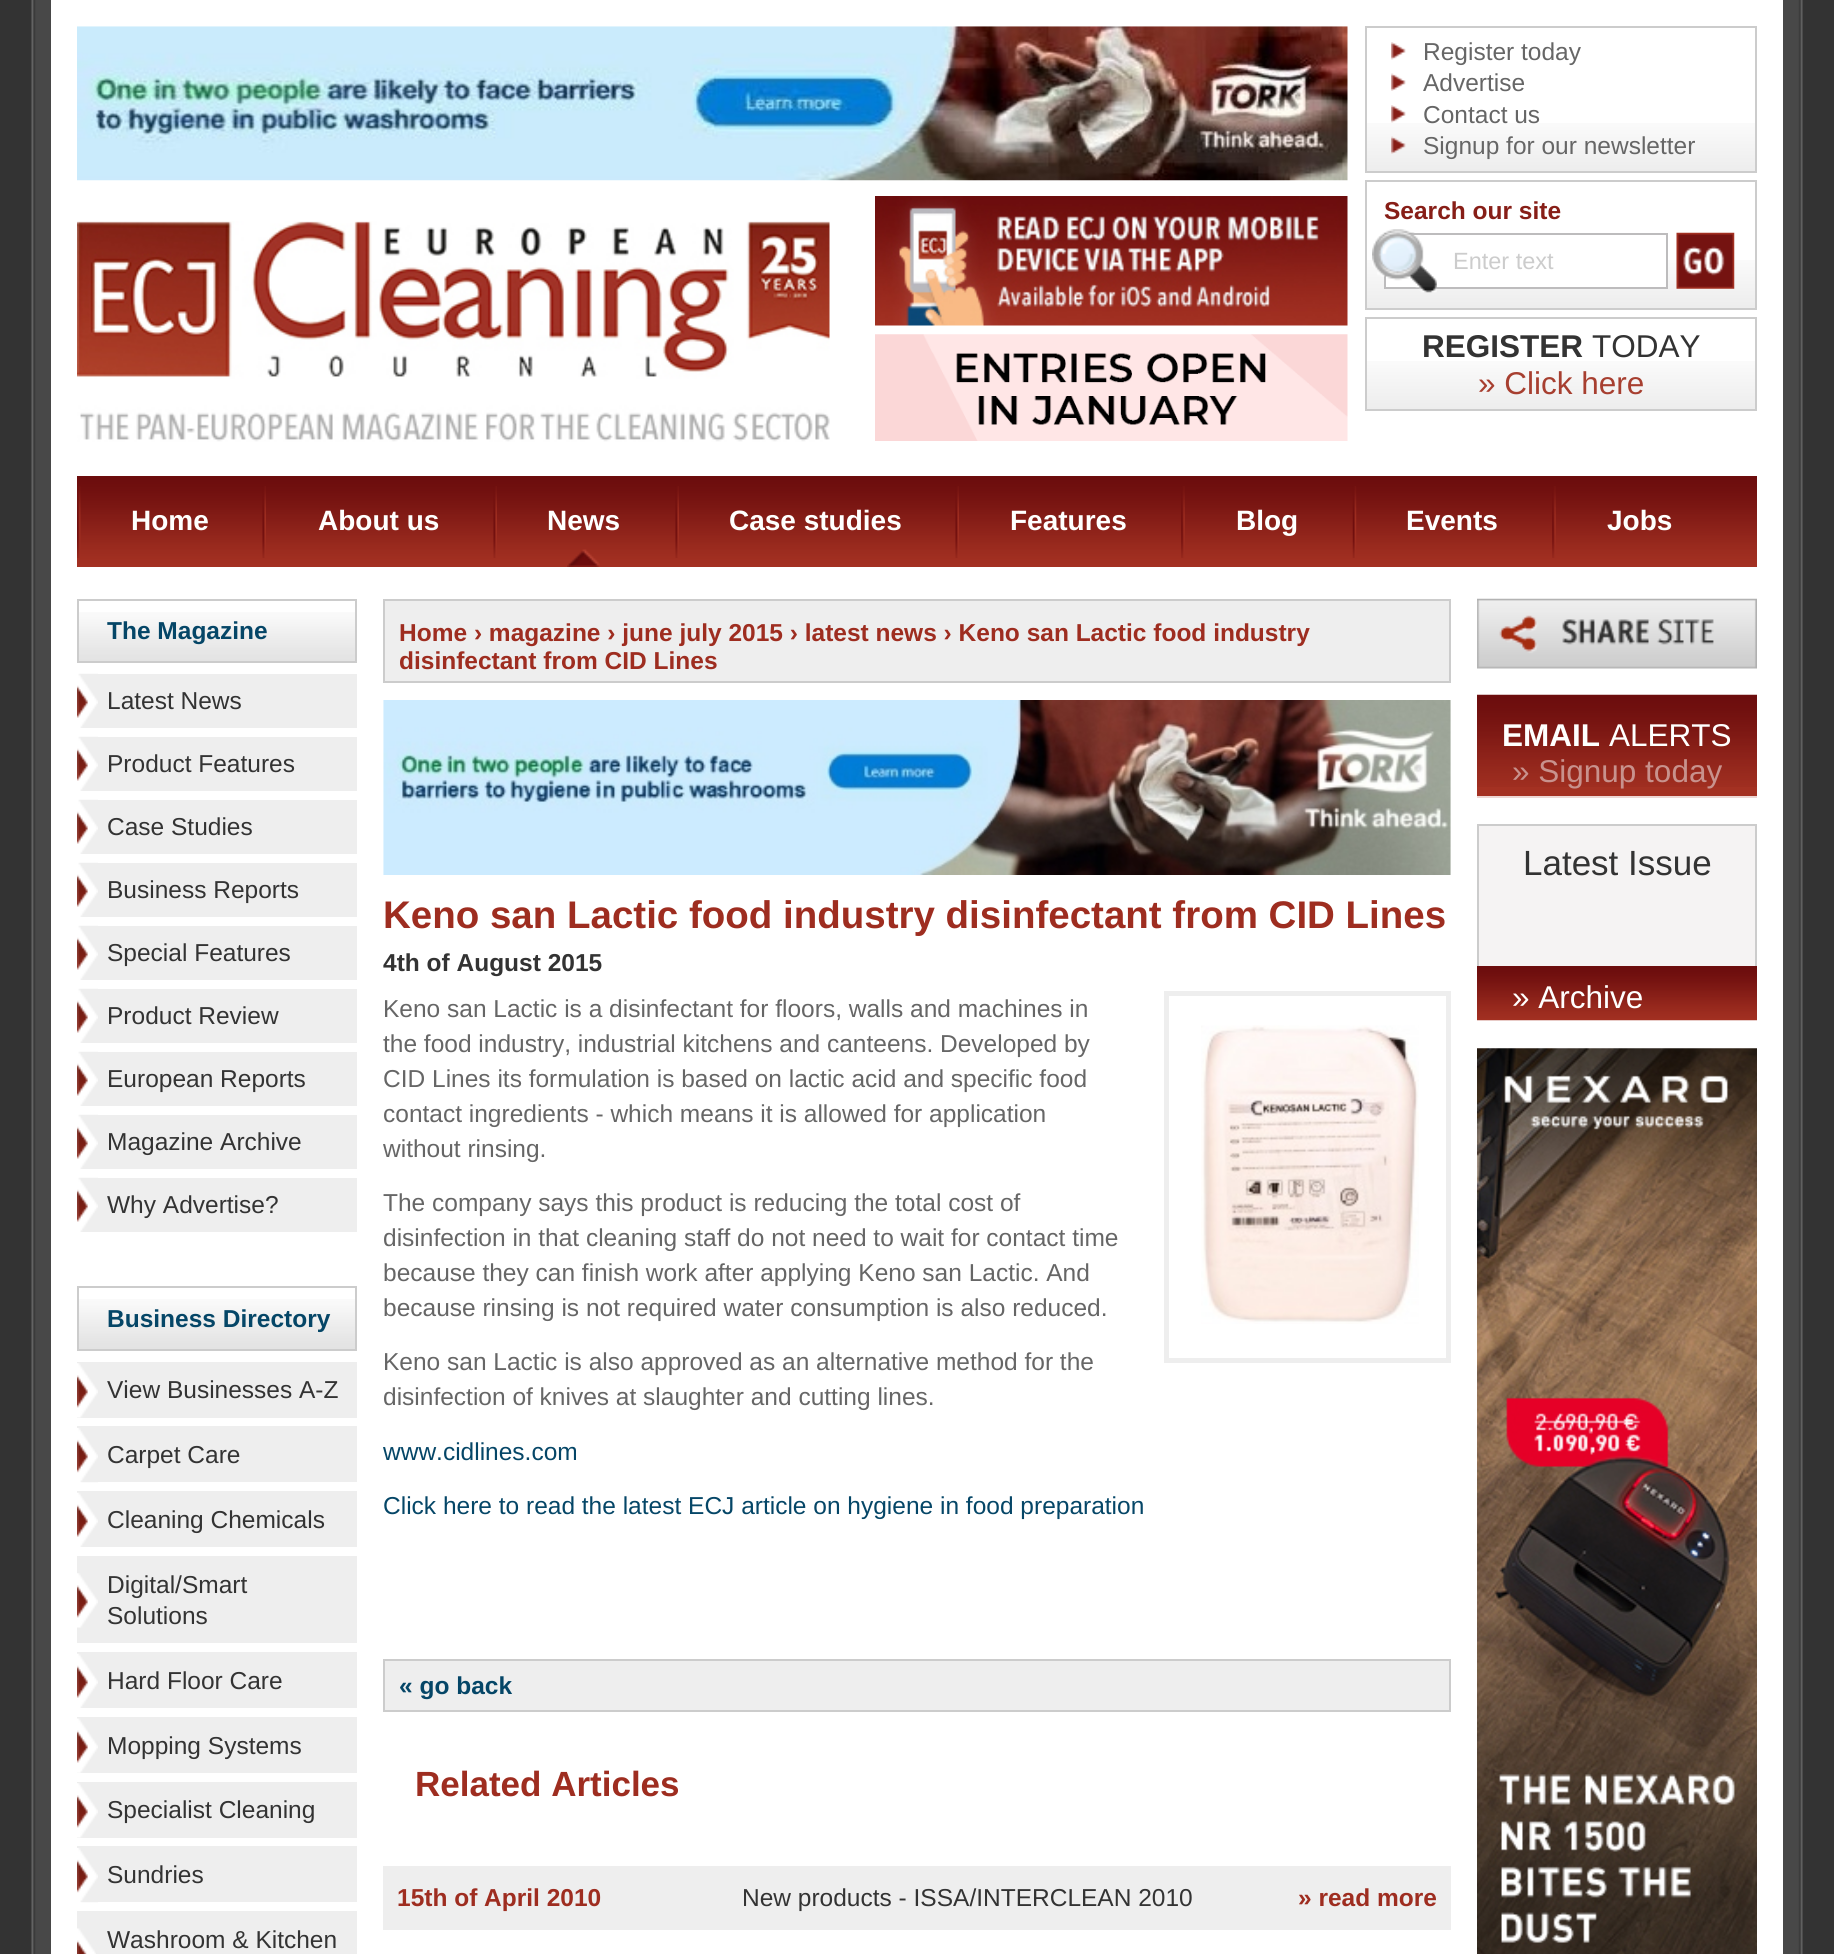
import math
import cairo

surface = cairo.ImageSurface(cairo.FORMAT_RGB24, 1834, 1954)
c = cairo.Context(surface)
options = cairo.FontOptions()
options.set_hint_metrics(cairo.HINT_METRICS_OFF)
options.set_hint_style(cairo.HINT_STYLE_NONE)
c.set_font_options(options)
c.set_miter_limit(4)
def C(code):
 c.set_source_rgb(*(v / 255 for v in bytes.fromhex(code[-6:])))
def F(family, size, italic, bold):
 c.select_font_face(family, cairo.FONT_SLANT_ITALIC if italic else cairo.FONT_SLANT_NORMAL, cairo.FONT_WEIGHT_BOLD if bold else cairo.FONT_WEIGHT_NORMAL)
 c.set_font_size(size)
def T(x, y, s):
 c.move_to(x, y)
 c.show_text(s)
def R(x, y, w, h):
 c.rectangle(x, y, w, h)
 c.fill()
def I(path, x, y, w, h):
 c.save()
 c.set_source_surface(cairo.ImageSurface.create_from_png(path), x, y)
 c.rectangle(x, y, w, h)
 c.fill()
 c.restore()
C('333333')
c.paint()
I('1.png',31,0,1772,1954)
C('ffffff')
R(51,0,1732,1954)
I('2.png',77,26,1271,155)
I('3.png',1367,123,388,48)
c.rectangle(1366,27,390,145)
C('cccccc')
c.stroke()
I('4.png',1391,42,15,18)
F('Liberation Sans',24.5,0,0)
C('666666')
T(1423,60,'Register today')
I('5.png',1391,73,15,18)
T(1423,91,'Advertise')
I('6.png',1391,105,15,18)
T(1423,123,'Contact us')
I('7.png',1391,136,15,18)
T(1423,154,'Signup for our newsletter')
I('8.png',1367,260,388,48)
c.rectangle(1366,181,390,128)
C('cccccc')
c.stroke()
F('Liberation Sans',24.5,0,1)
C('871e17')
T(1384,219,'Search our site')
C('ffffff')
R(1386,260,280,27)
c.rectangle(1385,234,282,54)
C('bdbcbd')
c.stroke()
I('9.png',1372,229,65,64)
F('Liberation Sans',23.5,0,0)
C('cccccc')
T(1453,269,'Enter text')
I('10.png',1676,232,59,57)
I('3.png',1367,361,388,48)
c.rectangle(1366,318,390,92)
c.stroke()
F('Liberation Sans',31.5,0,1)
C('333333')
T(1422,357,'REGISTER')
F('Liberation Sans',31.5,0,0)
T(1592,357,'TODAY')
C('a73f30')
T(1478,394,'» Click here')
I('11.png',77,221,753,221)
I('12.png',875,196,473,130)
I('13.png',875,334,473,107)
I('14.png',77,476,1680,91)
I('15.png',77,486,4,72)
F('Liberation Sans',28,0,1)
C('fffffe')
T(131,530,'Home')
I('16.png',262,486,4,72)
T(318,530,'About us')
I('16.png',493,486,4,72)
I('17.png',567,549,33,18)
T(547,530,'News')
I('16.png',675,486,4,72)
T(729,530,'Case studies')
I('16.png',955,486,4,72)
T(1010,530,'Features')
I('18.png',1181,486,4,72)
T(1236,530,'Blog')
I('19.png',1352,486,5,72)
T(1406,530,'Events')
I('18.png',1552,486,4,72)
T(1607,530,'Jobs')
I('20.png',79,612,276,49)
c.rectangle(78,600,278,62)
C('cccccc')
c.stroke()
F('Liberation Sans',24.5,0,1)
C('054667')
T(107,639,'The Magazine')
C('eeeeee')
R(98,674,259,54)
I('21.png',77,673,21,55)
F('Liberation Sans',24.5,0,0)
C('333333')
T(107,709,'Latest News')
C('eeeeee')
R(98,737,259,54)
I('21.png',77,736,21,55)
C('333333')
T(107,772,'Product Features')
C('eeeeee')
R(98,800,259,54)
I('21.png',77,799,21,55)
C('333333')
T(107,835,'Case Studies')
C('eeeeee')
R(98,863,259,54)
I('21.png',77,862,21,55)
C('333333')
T(107,898,'Business Reports')
C('eeeeee')
R(98,926,259,54)
I('21.png',77,925,21,55)
C('333333')
T(107,961,'Special Features')
C('eeeeee')
R(98,989,259,54)
I('21.png',77,988,21,55)
C('333333')
T(107,1024,'Product Review')
C('eeeeee')
R(98,1052,259,54)
I('21.png',77,1051,21,55)
C('333333')
T(107,1087,'European Reports')
C('eeeeee')
R(98,1115,259,54)
I('21.png',77,1114,21,55)
C('333333')
T(107,1150,'Magazine Archive')
C('eeeeee')
R(98,1178,259,54)
I('21.png',77,1177,21,55)
C('333333')
T(107,1213,'Why Advertise?')
I('22.png',79,1299,276,50)
c.rectangle(78,1287,278,63)
C('cccccc')
c.stroke()
F('Liberation Sans',24.5,0,1)
C('054667')
T(107,1327,'Business Directory')
C('eeeeee')
R(77,1362,280,56)
I('23.png',77,1363,21,55)
F('Liberation Sans',24.5,0,0)
C('333333')
T(107,1398,'View Businesses A-Z')
C('eeeeee')
R(77,1426,280,56)
I('24.png',77,1428,21,55)
C('333333')
T(107,1463,'Carpet Care')
C('eeeeee')
R(77,1491,280,56)
I('25.png',77,1492,21,55)
C('333333')
T(107,1528,'Cleaning Chemicals')
C('eeeeee')
R(77,1556,280,87)
I('23.png',77,1573,21,55)
C('333333')
T(107,1593,'Digital/Smart')
T(107,1624,'Solutions')
C('eeeeee')
R(77,1652,280,56)
I('25.png',77,1653,21,55)
C('333333')
T(107,1689,'Hard Floor Care')
C('eeeeee')
R(77,1717,280,56)
I('26.png',77,1718,21,55)
C('333333')
T(107,1754,'Mopping Systems')
C('eeeeee')
R(77,1782,280,56)
I('23.png',77,1783,21,55)
C('333333')
T(107,1818,'Specialist Cleaning')
C('eeeeee')
R(77,1846,280,56)
I('24.png',77,1848,21,55)
C('333333')
T(107,1883,'Sundries')
C('eeeeee')
R(77,1911,280,43)
I('27.png',77,1928,19,26)
C('333333')
T(107,1948,'Washroom & Kitchen')
C('eeeeee')
c.rectangle(384,600,1066,82)
c.fill_preserve()
C('cccccc')
c.stroke()
F('Liberation Sans',24.5,0,1)
C('9e2d20')
T(399,641,'Home › magazine › june july 2015 › latest news › Keno san Lactic food industry')
T(399,669,'disinfectant from CID Lines')
I('28.png',383,700,1068,175)
F('Liberation Sans',38.5,0,1)
T(383,928,'Keno san Lactic food industry disinfectant from CID Lines')
F('Liberation Sans',24.5,0,1)
C('333333')
T(383,971,'4th of August 2015')
F('Liberation Sans',24.5,0,0)
C('666666')
T(383,1017,'Keno san Lactic is a disinfectant for floors, walls and machines in')
T(383,1052,'the food industry, industrial kitchens and canteens. Developed by')
T(383,1087,'CID Lines its formulation is based on lactic acid and specific food')
T(383,1122,'contact ingredients - which means it is allowed for application')
T(383,1157,'without rinsing.')
T(383,1211,'The company says this product is reducing the total cost of')
T(383,1246,'disinfection in that cleaning staff do not need to wait for contact time')
T(383,1281,'because they can finish work after applying Keno san Lactic. And')
T(383,1316,'because rinsing is not required water consumption is also reduced.')
T(383,1370,'Keno san Lactic is also approved as an alternative method for the')
T(383,1405,'disinfection of knives at slaughter and cutting lines.')
C('054667')
T(383,1460,'www.cidlines.com')
T(383,1514,'Click here to read the latest ECJ article on hygiene in food preparation')
c.rectangle(1166.5,993.5,282,367)
C('eeeeee')
c.set_line_width(5)
c.stroke()
I('29.png',1201,1025,218,299)
c.rectangle(384,1660,1066,51)
c.fill_preserve()
C('cccccc')
c.set_line_width(2)
c.stroke()
F('Liberation Sans',24.5,0,1)
C('054667')
T(399,1694,'« go back')
F('Liberation Sans',35,0,1)
C('9e2d20')
T(415,1796,'Related Articles')
C('eeeeee')
R(383,1866,1068,64)
F('Liberation Sans',24.5,0,1)
C('9e2d20')
T(397,1906,'15th of April 2010')
F('Liberation Sans',24.5,0,0)
C('333333')
T(742,1906,'New products - ISSA/INTERCLEAN 2010')
F('Liberation Sans',24.5,0,1)
C('9e2d20')
T(1298,1906,'» read more')
I('30.png',1477,598,280,71)
C('a43122')
R(1477,787,280,9)
I('31.png',1477,694,280,93)
C('edd6d3')
R(1477,796,280,2)
F('Liberation Sans',31.5,0,1)
C('fffffe')
T(1502,746,'EMAIL')
F('Liberation Sans',31.5,0,0)
T(1609,746,'ALERTS')
C('c8928d')
T(1512,782,'» Signup today')
C('f5f3f3')
R(1479,826,276,140)
C('cccccc')
R(1477,824,280,2)
R(1755,824,2,142)
R(1477,824,2,142)
F('Liberation Sans',35,0,0)
C('333333')
T(1523,875,'Latest Issue')
I('32.png',1477,966,280,55)
F('Liberation Sans',31.5,0,0)
C('fffffe')
T(1512,1008,'» Archive')
I('33.png',1477,1048,280,906)
surface.write_to_png('o.png')
